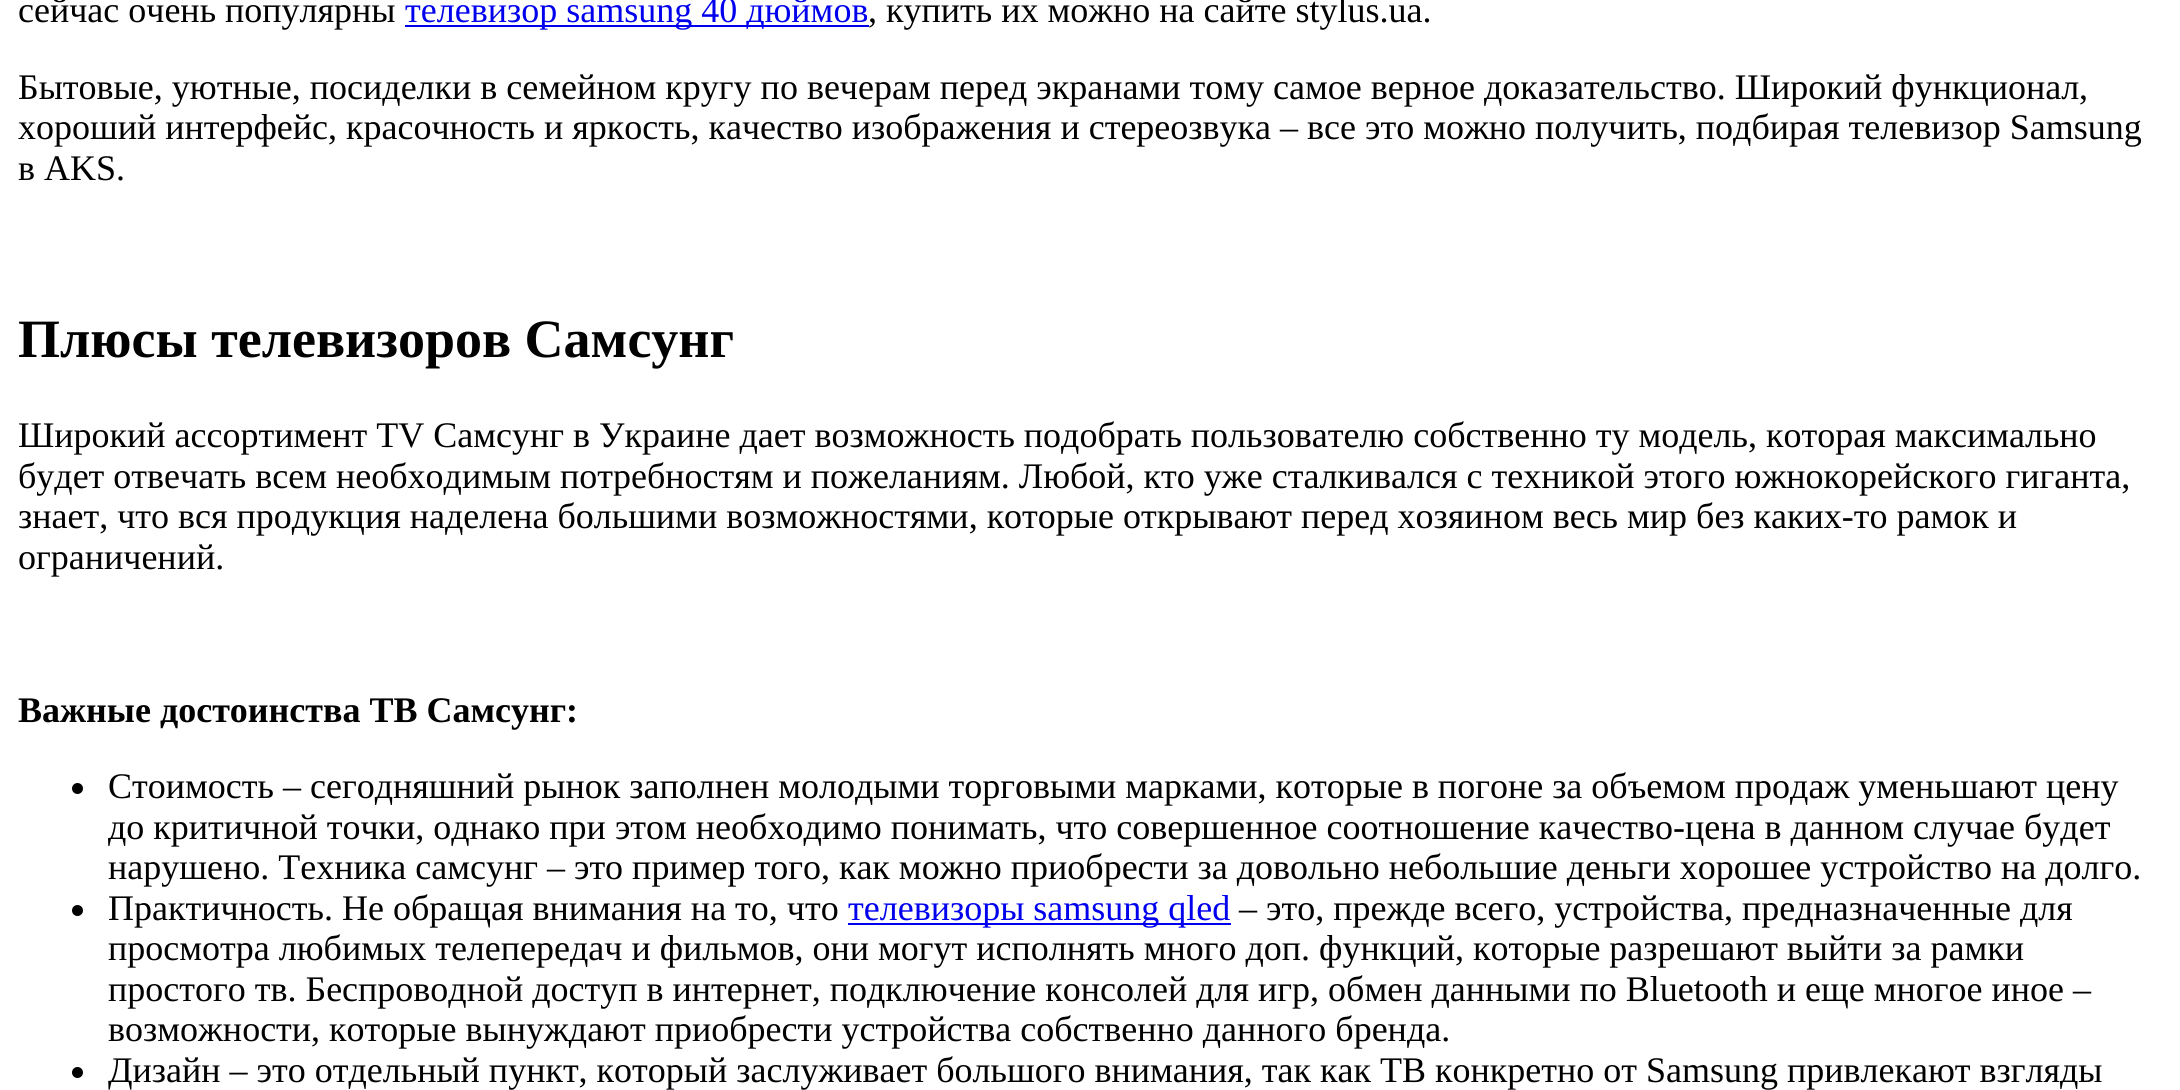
import math
import cairo

surface = cairo.ImageSurface(cairo.FORMAT_RGB24, 2180, 1090)
c = cairo.Context(surface)
options = cairo.FontOptions()
options.set_hint_metrics(cairo.HINT_METRICS_OFF)
options.set_hint_style(cairo.HINT_STYLE_NONE)
c.set_font_options(options)
c.set_miter_limit(4)
def C(code):
 c.set_source_rgb(*(v / 255 for v in bytes.fromhex(code[-6:])))
def F(family, size, italic, bold):
 c.select_font_face(family, cairo.FONT_SLANT_ITALIC if italic else cairo.FONT_SLANT_NORMAL, cairo.FONT_WEIGHT_BOLD if bold else cairo.FONT_WEIGHT_NORMAL)
 c.set_font_size(size)
def T(x, y, s):
 c.move_to(x, y)
 c.show_text(s)
def R(x, y, w, h):
 c.rectangle(x, y, w, h)
 c.fill()
C('ffffff')
c.paint()
F('Liberation Serif',36,0,0)
C('000000')
T(18,22,'сейчас очень популярны')
C('0000ee')
R(405,25,464,2)
T(405,22,'телевизор samsung 40 дюймов')
C('000000')
T(868,22,', купить их можно на сайте stylus.ua.')
T(18,99,'Бытовые, уютные, посиделки в семейном кругу по вечерам перед экранами тому самое верное доказательство. Широкий функционал,')
T(18,139,'хороший интерфейс, красочность и яркость, качество изображения и стереозвука – все это можно получить, подбирая телевизор Samsung')
T(18,180,'в AKS.')
F('Liberation Serif',54,0,1)
T(18,357,'Плюсы телевизоров Самсунг')
F('Liberation Serif',36,0,0)
T(18,447,'Широкий ассортимент TV Cамсунг в Украине дает возможность подобрать пользователю собственно ту модель, которая максимально')
T(18,488,'будет отвечать всем необходимым потребностям и пожеланиям. Любой, кто уже сталкивался с техникой этого южнокорейского гиганта,')
T(18,528,'знает, что вся продукция наделена большими возможностями, которые открывают перед хозяином весь мир без каких-то рамок и')
T(18,569,'ограничений.')
F('Liberation Serif',36,0,1)
T(18,722,'Важные достоинства ТВ Самсунг:')
c.new_path()
c.arc(77.5,788.5,5.5,0,2 * math.pi)
c.fill()
F('Liberation Serif',36,0,0)
T(108,798,'Стоимость – сегодняшний рынок заполнен молодыми торговыми марками, которые в погоне за объемом продаж уменьшают цену')
T(108,839,'до критичной точки, однако при этом необходимо понимать, что совершенное соотношение качество-цена в данном случае будет')
T(108,879,'нарушено. Техника самсунг – это пример того, как можно приобрести за довольно небольшие деньги хорошее устройство на долго.')
c.new_path()
c.arc(77.5,910.5,5.5,0,2 * math.pi)
c.fill()
T(108,920,'Практичность. Не обращая внимания на то, что')
C('0000ee')
R(848,923,383,2)
T(848,920,'телевизоры samsung qled')
C('000000')
T(1239,920,'– это, прежде всего, устройства, предназначенные для')
T(108,960,'просмотра любимых телепередач и фильмов, они могут исполнять много доп. функций, которые разрешают выйти за рамки')
T(108,1001,'простого тв. Беспроводной доступ в интернет, подключение консолей для игр, обмен данными по Bluetooth и еще многое иное –')
T(108,1041,'возможности, которые вынуждают приобрести устройства собственно данного бренда.')
c.new_path()
c.arc(77.5,1072.5,5.5,0,2 * math.pi)
c.fill()
T(108,1082,'Дизайн – это отдельный пункт, который заслуживает большого внимания, так как ТВ конкретно от Samsung привлекают взгляды')
surface.write_to_png('o.png')
